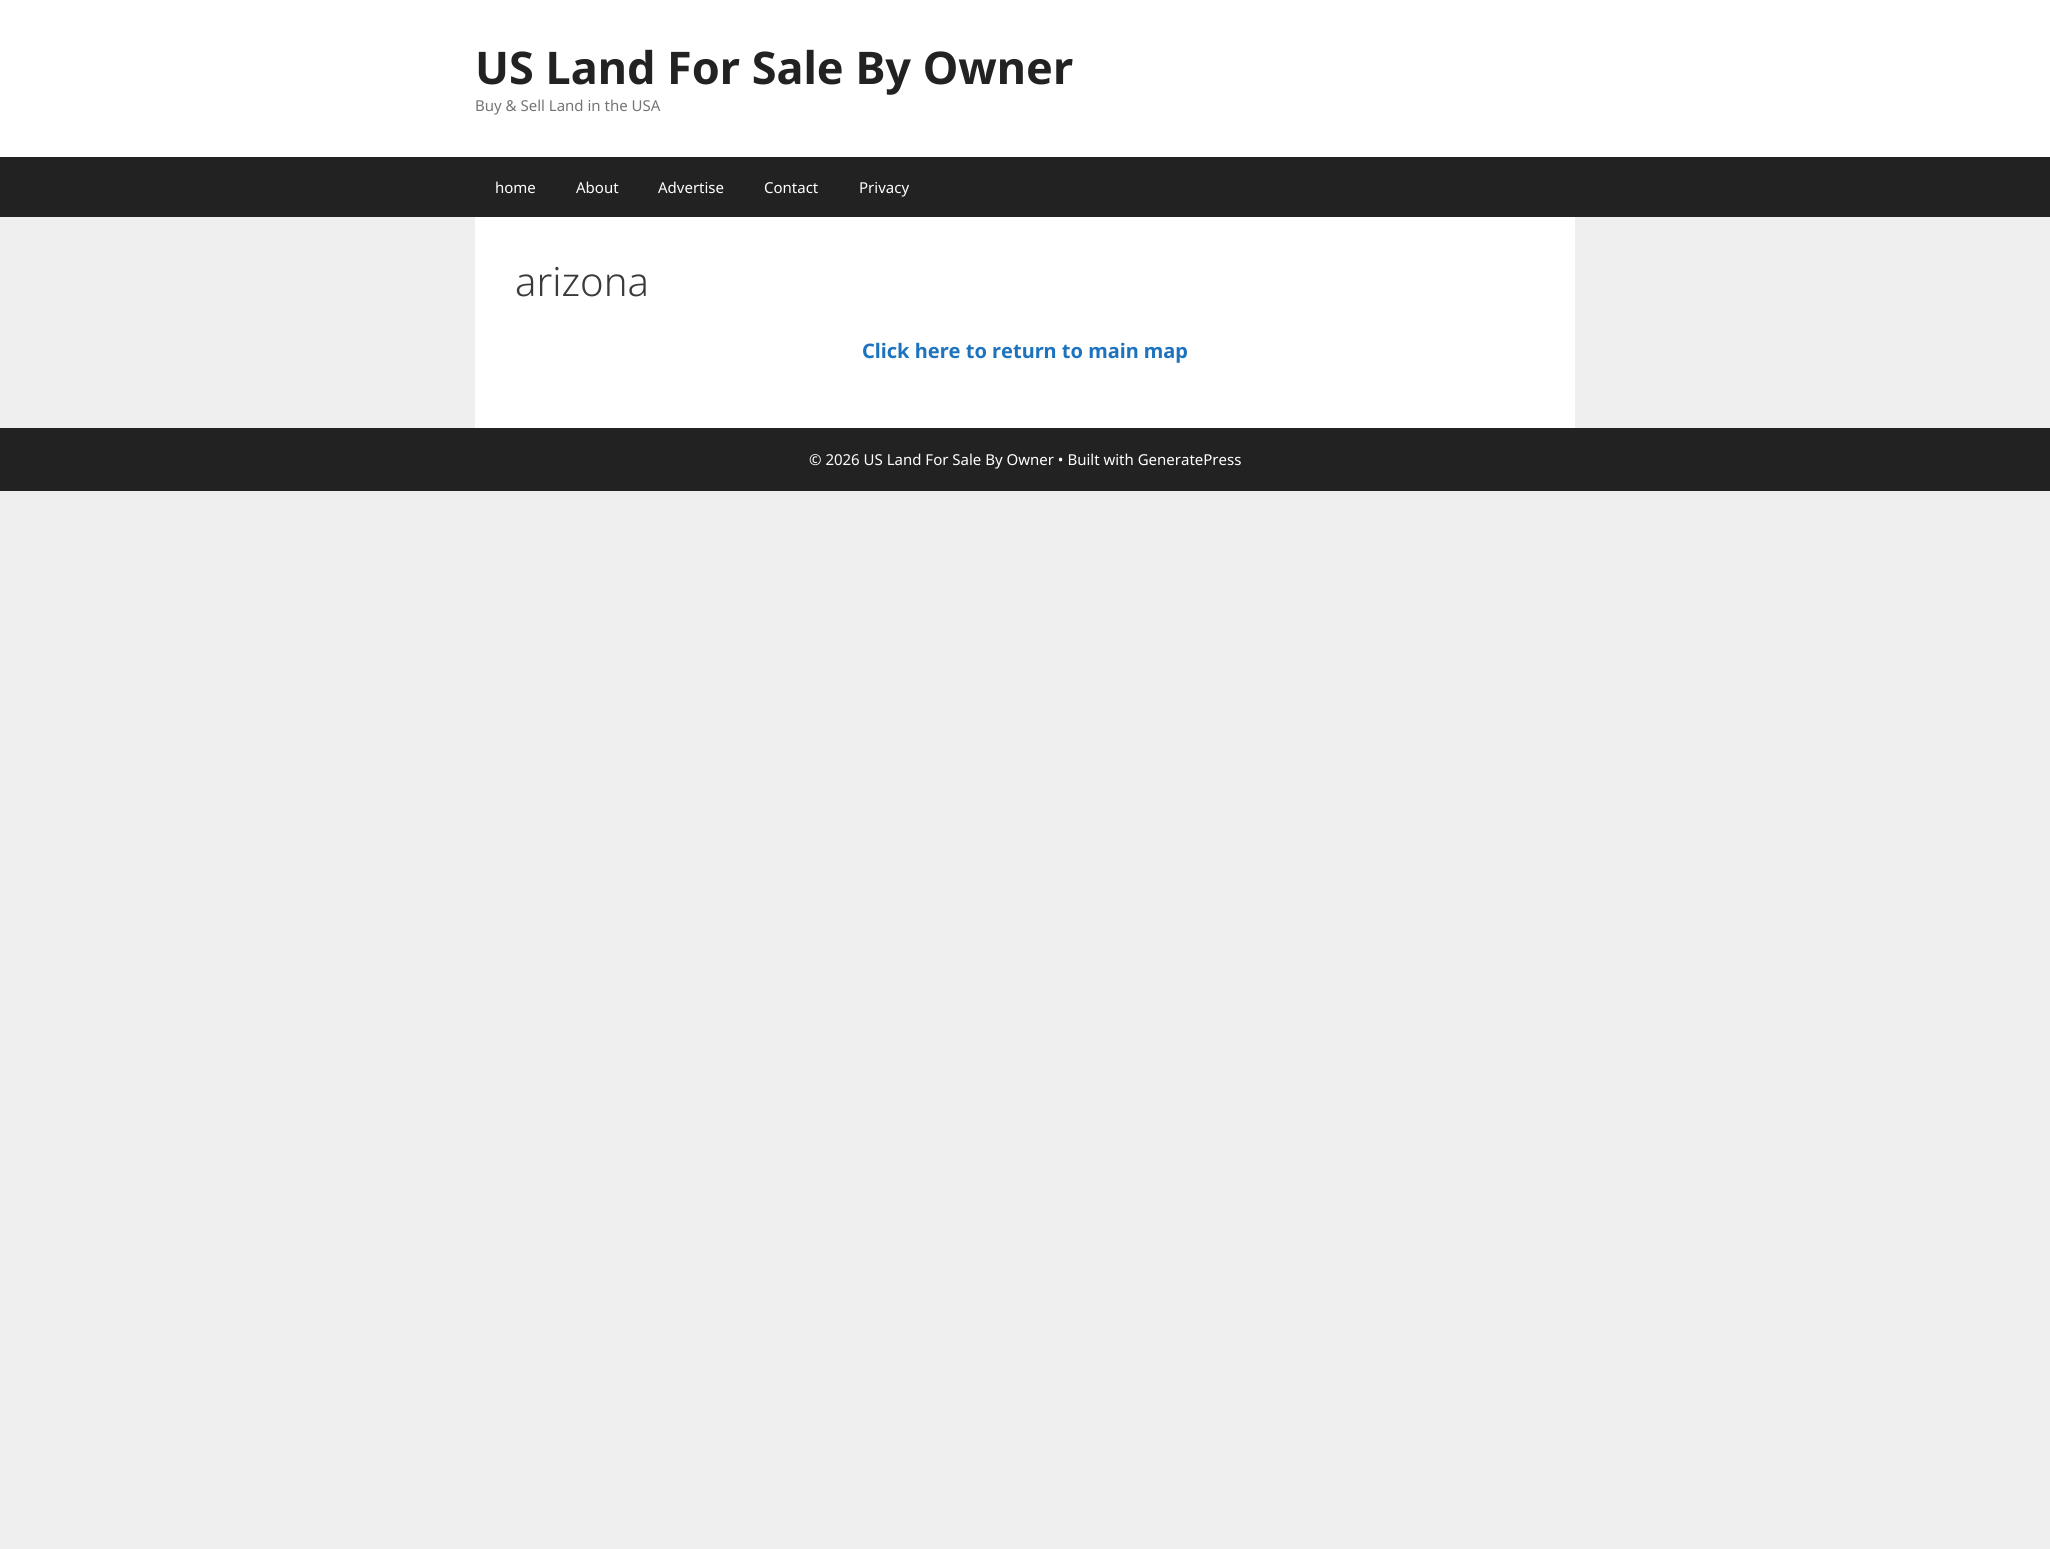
import math
import cairo

surface = cairo.ImageSurface(cairo.FORMAT_RGB24, 2050, 1549)
c = cairo.Context(surface)
options = cairo.FontOptions()
options.set_hint_metrics(cairo.HINT_METRICS_OFF)
options.set_hint_style(cairo.HINT_STYLE_NONE)
c.set_font_options(options)
c.set_miter_limit(4)
def C(code):
 c.set_source_rgb(*(v / 255 for v in bytes.fromhex(code[-6:])))
def F(family, size, italic, bold):
 c.select_font_face(family, cairo.FONT_SLANT_ITALIC if italic else cairo.FONT_SLANT_NORMAL, cairo.FONT_WEIGHT_BOLD if bold else cairo.FONT_WEIGHT_NORMAL)
 c.set_font_size(size)
def T(x, y, s):
 c.move_to(x, y)
 c.show_text(s)
def R(x, y, w, h):
 c.rectangle(x, y, w, h)
 c.fill()
C('efefef')
c.paint()
C('ffffff')
R(0,0,2050,157)
F('Noto Sans',45,0,1)
C('222222')
T(475,84,'US Land For Sale By Owner')
F('Noto Sans',15,0,0)
C('757575')
T(475,111,'Buy & Sell Land in the USA')
C('222222')
R(0,157,2050,60)
C('ffffff')
T(495,193,'home')
T(576,193,'About')
T(658,193,'Advertise')
T(764,193,'Contact')
T(859,193,'Privacy')
R(475,217,1100,211)
F('Noto Sans Light',40,0,0)
C('3a3a3a')
T(515,296,'arizona')
F('Noto Sans',20,0,1)
C('1e73be')
T(862,358,'Click here to return to main map')
C('222222')
R(0,428,2050,63)
F('Noto Sans',15,0,0)
C('ffffff')
T(809,465,'© 2026 US Land For Sale By Owner • Built with GeneratePress')
surface.write_to_png('o.png')
